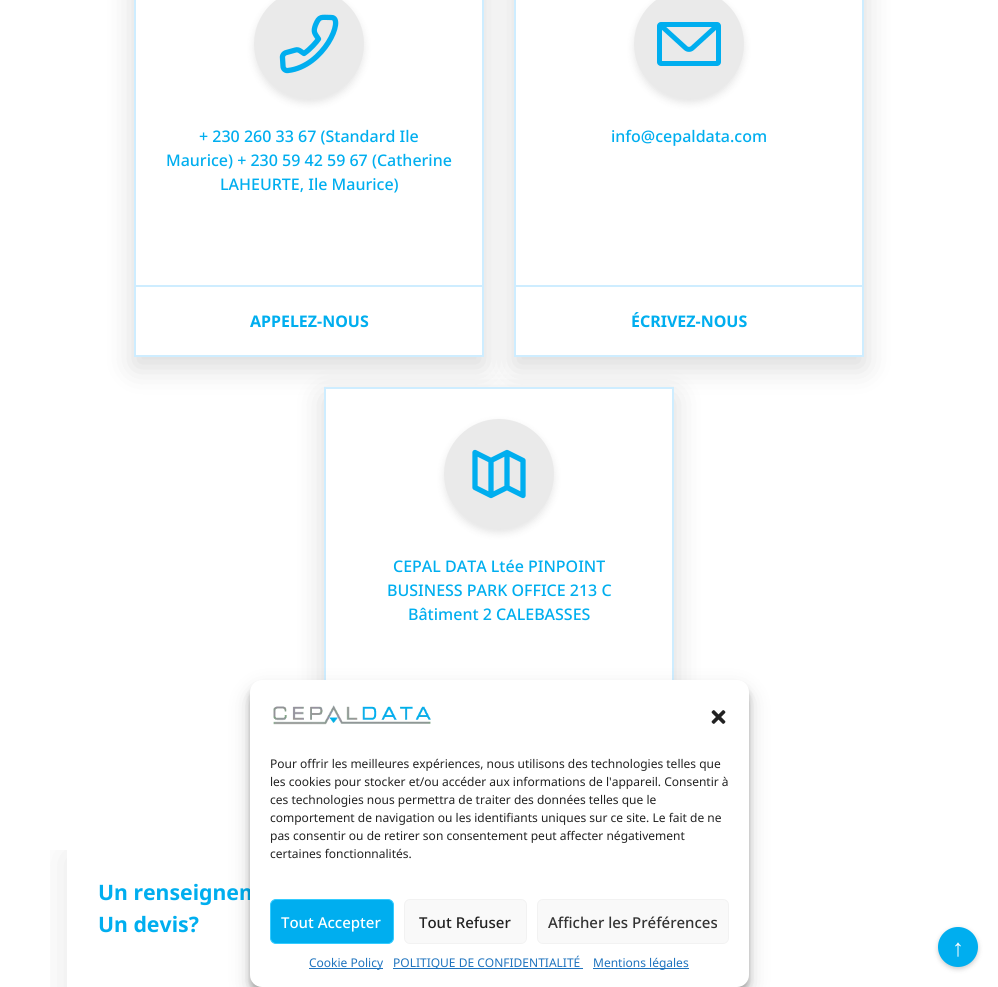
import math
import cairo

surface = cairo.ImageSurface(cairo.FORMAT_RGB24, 998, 987)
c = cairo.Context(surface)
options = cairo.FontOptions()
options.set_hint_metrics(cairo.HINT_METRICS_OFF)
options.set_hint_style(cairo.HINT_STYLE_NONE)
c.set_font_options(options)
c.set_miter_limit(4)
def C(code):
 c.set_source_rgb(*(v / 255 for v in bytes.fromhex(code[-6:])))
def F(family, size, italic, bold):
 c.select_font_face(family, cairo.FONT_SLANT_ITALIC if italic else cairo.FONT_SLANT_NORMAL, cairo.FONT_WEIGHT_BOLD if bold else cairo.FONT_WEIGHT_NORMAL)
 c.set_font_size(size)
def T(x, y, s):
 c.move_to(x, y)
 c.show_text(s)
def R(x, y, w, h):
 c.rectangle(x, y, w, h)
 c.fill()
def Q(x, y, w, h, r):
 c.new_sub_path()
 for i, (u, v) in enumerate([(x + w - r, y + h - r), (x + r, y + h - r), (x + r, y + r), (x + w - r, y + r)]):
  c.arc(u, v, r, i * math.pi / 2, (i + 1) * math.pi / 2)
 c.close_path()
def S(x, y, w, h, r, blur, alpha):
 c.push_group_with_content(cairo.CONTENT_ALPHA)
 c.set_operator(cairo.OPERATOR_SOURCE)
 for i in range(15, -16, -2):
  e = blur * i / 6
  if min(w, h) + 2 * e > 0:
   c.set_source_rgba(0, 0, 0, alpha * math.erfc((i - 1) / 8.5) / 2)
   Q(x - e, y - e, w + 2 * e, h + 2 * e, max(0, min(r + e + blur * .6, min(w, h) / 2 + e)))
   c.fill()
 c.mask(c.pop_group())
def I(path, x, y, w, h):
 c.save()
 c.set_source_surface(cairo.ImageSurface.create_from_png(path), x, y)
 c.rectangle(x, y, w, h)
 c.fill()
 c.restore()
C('ffffff')
c.paint()
c.save()
c.set_fill_rule(cairo.FILL_RULE_EVEN_ODD)
c.new_path()
c.move_to(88,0)
c.line_to(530,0)
c.line_to(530,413)
c.line_to(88,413)
c.close_path()
c.move_to(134,-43)
c.line_to(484,-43)
c.line_to(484,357)
c.line_to(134,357)
c.close_path()
c.clip()
C('000000')
S(134,-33,350,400,0,15,.15)
c.restore()
c.rectangle(135,-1,348,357)
C('ceedff')
c.stroke()
C('000000')
S(254,-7,110,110,55,4,.1)
C('eaeaea')
c.arc(309,44,55,0,2 * math.pi)
c.fill()
c.new_path()
c.move_to(331.5,17.5)
c.curve_to(321,17.5,319.5,15.5,315.5,25)
c.curve_to(313,32,314.5,33,318.5,39)
c.curve_to(316.5,42,310.5,49,304,53.5)
c.line_to(299.5,50.5)
c.curve_to(298.5,50,297,49.5,295.5,50)
c.line_to(286.5,52.5)
c.curve_to(284,53,282,55.5,282.5,58)
c.line_to(283,66)
c.curve_to(283,69,285.5,71,288,70.5)
c.curve_to(324,66.5,345,17.5,331.5,17.5)
c.close_path()
C('00aeef')
c.set_line_width(5.3)
c.set_line_cap(cairo.LINE_CAP_ROUND)
c.set_line_join(cairo.LINE_JOIN_ROUND)
c.stroke()
F('Noto Sans Medium',16,0,0)
T(199,142,'+ 230 260 33 67 (Standard Ile')
T(166,166,'Maurice) + 230 59 42 59 67 (Catherine')
T(220,190,'LAHEURTE, Ile Maurice)')
C('ceedff')
R(136,285,346,2)
F('Noto Sans',16,0,1)
C('00aeef')
T(250,327,'APPELEZ-NOUS')
c.save()
c.set_fill_rule(cairo.FILL_RULE_EVEN_ODD)
c.new_path()
c.move_to(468,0)
c.line_to(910,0)
c.line_to(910,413)
c.line_to(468,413)
c.close_path()
c.move_to(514,-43)
c.line_to(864,-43)
c.line_to(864,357)
c.line_to(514,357)
c.close_path()
c.clip()
C('000000')
S(514,-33,350,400,0,15,.15)
c.restore()
c.rectangle(515,-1,348,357)
C('ceedff')
c.set_line_width(2)
c.set_line_cap(cairo.LINE_CAP_BUTT)
c.set_line_join(cairo.LINE_JOIN_MITER)
c.stroke()
C('000000')
S(634,-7,110,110,55,4,.1)
C('eaeaea')
c.arc(689,44,55,0,2 * math.pi)
c.fill()
I('1.png',657,22,64,44)
F('Noto Sans Medium',16,0,0)
C('00aeef')
T(611,142,'info@cepaldata.com')
C('ceedff')
R(516,285,346,2)
F('Noto Sans',16,0,1)
C('00aeef')
T(631,327,'ÉCRIVEZ-NOUS')
C('000000')
S(324,397,350,400,0,15,.15)
C('ffffff')
R(326,389,346,291)
c.rectangle(325,388,348,398)
C('ceedff')
c.stroke()
C('000000')
S(444,423,110,110,55,4,.1)
C('eaeaea')
c.arc(499,474,55,0,2 * math.pi)
c.fill()
c.new_path()
c.move_to(491,495.5)
c.line_to(475,487.5)
c.line_to(475,452.5)
c.line_to(491,460.5)
c.move_to(491,495.5)
c.line_to(507,487.5)
c.move_to(491,495.5)
c.line_to(491,460.5)
c.move_to(507,487.5)
c.line_to(523,495.5)
c.line_to(523,460.5)
c.line_to(507,452.5)
c.move_to(507,487.5)
c.line_to(507,452.5)
c.move_to(491,460.5)
c.line_to(507,452.5)
C('00aeef')
c.set_line_width(5.3)
c.set_line_cap(cairo.LINE_CAP_ROUND)
c.set_line_join(cairo.LINE_JOIN_ROUND)
c.stroke()
F('Noto Sans Medium',16,0,0)
T(393,572,'CEPAL DATA Ltée PINPOINT')
T(387,596,'BUSINESS PARK OFFICE 213 C')
T(408,620,'Bâtiment 2 CALEBASSES')
c.save()
c.rectangle(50,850,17,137)
c.clip()
C('000000')
S(67,855,400,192,0,20,.1)
c.restore()
F('Noto Sans',21.25,0,1)
T(98,900,'Un renseignem')
T(98,932,'Un devis?')
C('000000')
S(938,929,40,40,20,2.5,.2)
C('00aeef')
c.arc(958,947,20,0,2 * math.pi)
c.fill()
F('Liberation Sans',24,0,0)
C('ffffff')
T(952,956,'↑')
C('000000')
S(250,686,499,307,12,3,.23)
S(250,690,499,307,12,10,.19)
C('ffffff')
Q(250,680,499,307,12)
c.fill()
I('2.png',273,705,158,20)
I('3.png',711,710,15,14)
F('Noto Sans',12,0,0)
C('222222')
T(270,768,'Pour offrir les meilleures expériences, nous utilisons des technologies telles que')
T(270,786,'les cookies pour stocker et/ou accéder aux informations de l\'appareil. Consentir à')
T(270,804,'ces technologies nous permettra de traiter des données telles que le')
T(270,822,'comportement de navigation ou les identifiants uniques sur ce site. Le fait de ne')
T(270,840,'pas consentir ou de retirer son consentement peut affecter négativement')
T(270,858,'certaines fonctionnalités.')
C('00aeef')
Q(270.5,899.5,123,44,5.5)
c.fill_preserve()
C('34ccff')
c.set_line_width(1)
c.set_line_cap(cairo.LINE_CAP_BUTT)
c.set_line_join(cairo.LINE_JOIN_MITER)
c.stroke()
F('Noto Sans Medium',15,0,0)
C('ffffff')
T(281,928,'Tout Accepter')
C('f9f9f9')
Q(404.5,899.5,122,44,5.5)
c.fill_preserve()
C('f2f2f2')
c.stroke()
C('222222')
T(419,928,'Tout Refuser')
C('f9f9f9')
Q(537.5,899.5,191,44,5.5)
c.fill_preserve()
C('f2f2f2')
c.stroke()
C('333333')
T(548,928,'Afficher les Préférences')
C('1e73be')
R(309,968,74,1)
F('Noto Sans',12,0,0)
T(309,967,'Cookie Policy')
R(393,968,190,1)
T(393,967,'POLITIQUE DE CONFIDENTIALITÉ')
R(593,968,96,1)
T(593,967,'Mentions légales')
surface.write_to_png('o.png')
